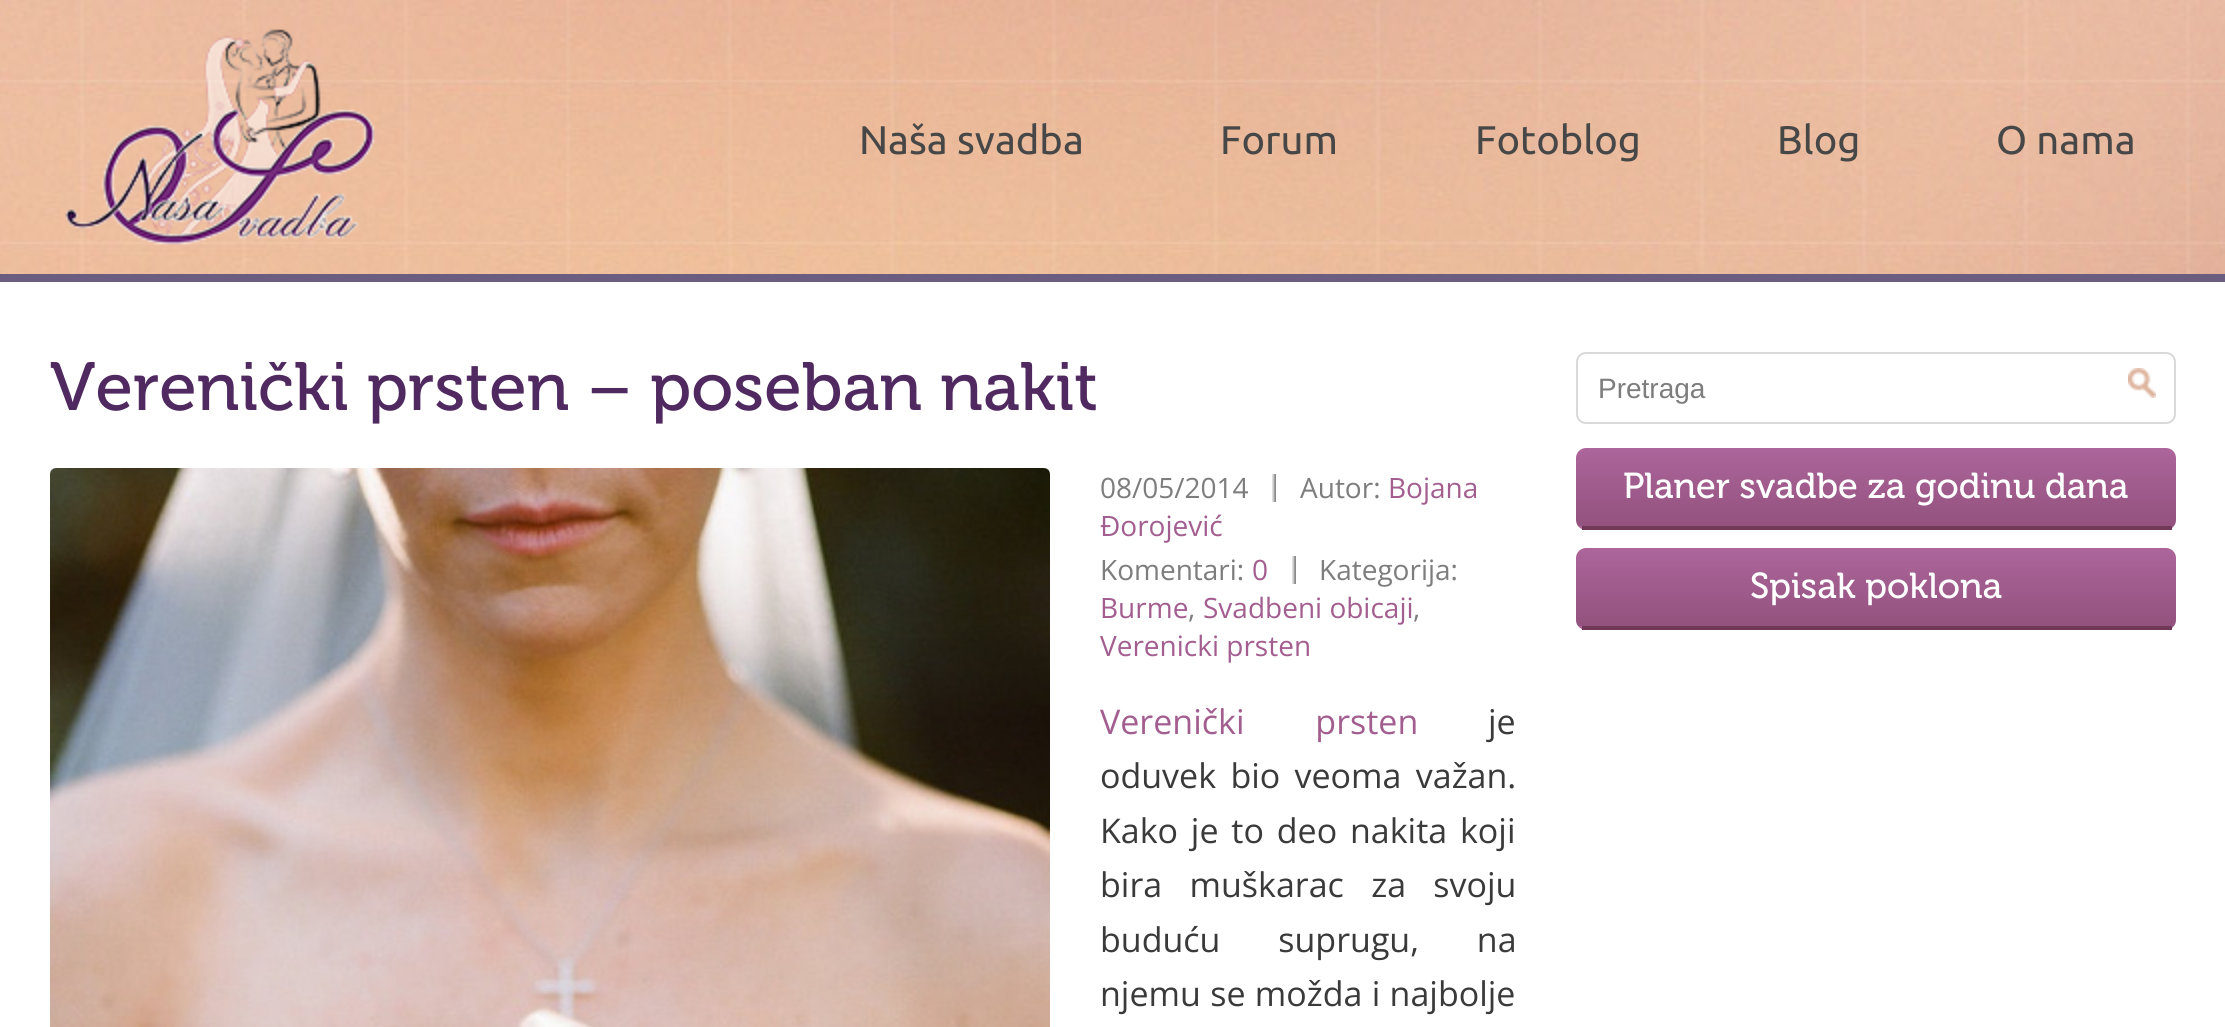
import math
import cairo

surface = cairo.ImageSurface(cairo.FORMAT_RGB24, 2225, 1027)
c = cairo.Context(surface)
options = cairo.FontOptions()
options.set_hint_metrics(cairo.HINT_METRICS_OFF)
options.set_hint_style(cairo.HINT_STYLE_NONE)
c.set_font_options(options)
c.set_miter_limit(4)
def C(code):
 c.set_source_rgb(*(v / 255 for v in bytes.fromhex(code[-6:])))
def F(family, size, italic, bold):
 c.select_font_face(family, cairo.FONT_SLANT_ITALIC if italic else cairo.FONT_SLANT_NORMAL, cairo.FONT_WEIGHT_BOLD if bold else cairo.FONT_WEIGHT_NORMAL)
 c.set_font_size(size)
def T(x, y, s):
 c.move_to(x, y)
 c.show_text(s)
def L(x, y, s, letter, word):
 c.move_to(x, y)
 for ch in s:
  c.show_text(ch)
  c.rel_move_to(letter + word * (ch == ' '), 0)
def R(x, y, w, h):
 c.rectangle(x, y, w, h)
 c.fill()
def Q(x, y, w, h, r):
 c.new_sub_path()
 for i, (u, v) in enumerate([(x + w - r, y + h - r), (x + r, y + h - r), (x + r, y + r), (x + w - r, y + r)]):
  c.arc(u, v, r, i * math.pi / 2, (i + 1) * math.pi / 2)
 c.close_path()
def S(x, y, w, h, r, blur, alpha):
 c.push_group_with_content(cairo.CONTENT_ALPHA)
 c.set_operator(cairo.OPERATOR_SOURCE)
 for i in range(15, -16, -2):
  e = blur * i / 6
  if min(w, h) + 2 * e > 0:
   c.set_source_rgba(0, 0, 0, alpha * math.erfc((i - 1) / 8.5) / 2)
   Q(x - e, y - e, w + 2 * e, h + 2 * e, max(0, min(r + e + blur * .6, min(w, h) / 2 + e)))
   c.fill()
 c.mask(c.pop_group())
def I(path, x, y, w, h):
 c.save()
 c.set_source_surface(cairo.ImageSurface.create_from_png(path), x, y)
 c.rectangle(x, y, w, h)
 c.fill()
 c.restore()
C('ffffff')
c.paint()
I('1.png',0,0,2225,274)
I('2.png',65,29,310,216)
F('Ubuntu',40,0,0)
C('474747')
T(859,154,'Naša svadba')
T(1220,154,'Forum')
T(1475,154,'Fotoblog')
T(1777,154,'Blog')
T(1996,154,'O nama')
C('6b5d80')
R(0,274,2225,8)
F('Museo',68,0,0)
C('4f2960')
T(50,410,'Verenički prsten – poseban nakit')
c.save()
c.rectangle(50,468,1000,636)
c.clip()
C('000000')
S(50,470,1000,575,6,4,.2)
c.restore()
I('3.png',50,468,1000,559)
F('Open Sans',28,0,0)
C('7d7d7d')
T(1100,498,'08/05/2014')
I('4.png',1272,474,4,28)
T(1300,498,'Autor:')
C('a35e90')
T(1388,498,'Bojana')
T(1100,536,'Đorojević')
C('7d7d7d')
T(1100,580,'Komentari:')
C('a35e90')
T(1252,580,'0')
I('4.png',1292,556,4,28)
C('7d7d7d')
T(1319,580,'Kategorija:')
C('a35e90')
T(1100,618,'Burme')
C('7d7d7d')
T(1188,618,',')
C('a35e90')
T(1203,618,'Svadbeni obicaji')
C('7d7d7d')
T(1413,618,',')
C('a35e90')
T(1100,656,'Verenicki prsten')
F('Open Sans',34,0,0)
L(1100,734,'Verenički prsten',0,62)
C('3a3a3a')
T(1488,734,'je')
L(1100,788,'oduvek bio veoma važan.',0,5.5)
L(1100,843,'Kako je to deo nakita koji',0,4)
L(1100,897,'bira muškarac za svoju',0,18.5)
L(1100,952,'buduću suprugu, na',0,49)
L(1100,1006,'njemu se možda i najbolje',0,.5)
Q(1577,353,598,70,9)
C('d9d9d9')
c.stroke()
F('Liberation Sans',28,0,0)
C('7d7d7d')
T(1598,398,'Pretraga')
I('5.png',2128,368,28,30)
c.save()
Q(1576,448,600,82,10)
c.clip()
gradient = cairo.LinearGradient(1876,448,1876,526)
gradient.add_color_stop_rgba(0,0.678,0.396,0.608,1)
gradient.add_color_stop_rgba(1,0.576,0.322,0.494,1)
c.set_source(gradient)
c.new_path()
c.move_to(1586,448)
c.line_to(2166,448)
c.curve_to(2171.5,448,2176,452.5,2176,458)
c.line_to(2176,526)
c.line_to(1576,526)
c.line_to(1576,458)
c.curve_to(1576,452.5,1580.5,448,1586,448)
c.close_path()
c.fill()
gradient = cairo.LinearGradient(1876,526,1876,604)
gradient.add_color_stop_rgba(0,0.678,0.396,0.608,1)
gradient.add_color_stop_rgba(1,0.576,0.322,0.494,1)
c.set_source(gradient)
R(1576,526,600,3)
c.restore()
C('703957')
R(1582,526,590,4)
F('Museo',36,0,0)
C('ffffff')
T(1623,498,'Planer svadbe za godinu dana')
c.save()
Q(1576,548,600,82,10)
c.clip()
gradient = cairo.LinearGradient(1876,548,1876,626)
gradient.add_color_stop_rgba(0,0.678,0.396,0.608,1)
gradient.add_color_stop_rgba(1,0.576,0.322,0.494,1)
c.set_source(gradient)
c.new_path()
c.move_to(1586,548)
c.line_to(2166,548)
c.curve_to(2171.5,548,2176,552.5,2176,558)
c.line_to(2176,626)
c.line_to(1576,626)
c.line_to(1576,558)
c.curve_to(1576,552.5,1580.5,548,1586,548)
c.close_path()
c.fill()
gradient = cairo.LinearGradient(1876,626,1876,704)
gradient.add_color_stop_rgba(0,0.678,0.396,0.608,1)
gradient.add_color_stop_rgba(1,0.576,0.322,0.494,1)
c.set_source(gradient)
R(1576,626,600,3)
c.restore()
C('703957')
R(1582,626,590,4)
C('ffffff')
T(1750,598,'Spisak poklona')
surface.write_to_png('o.png')
